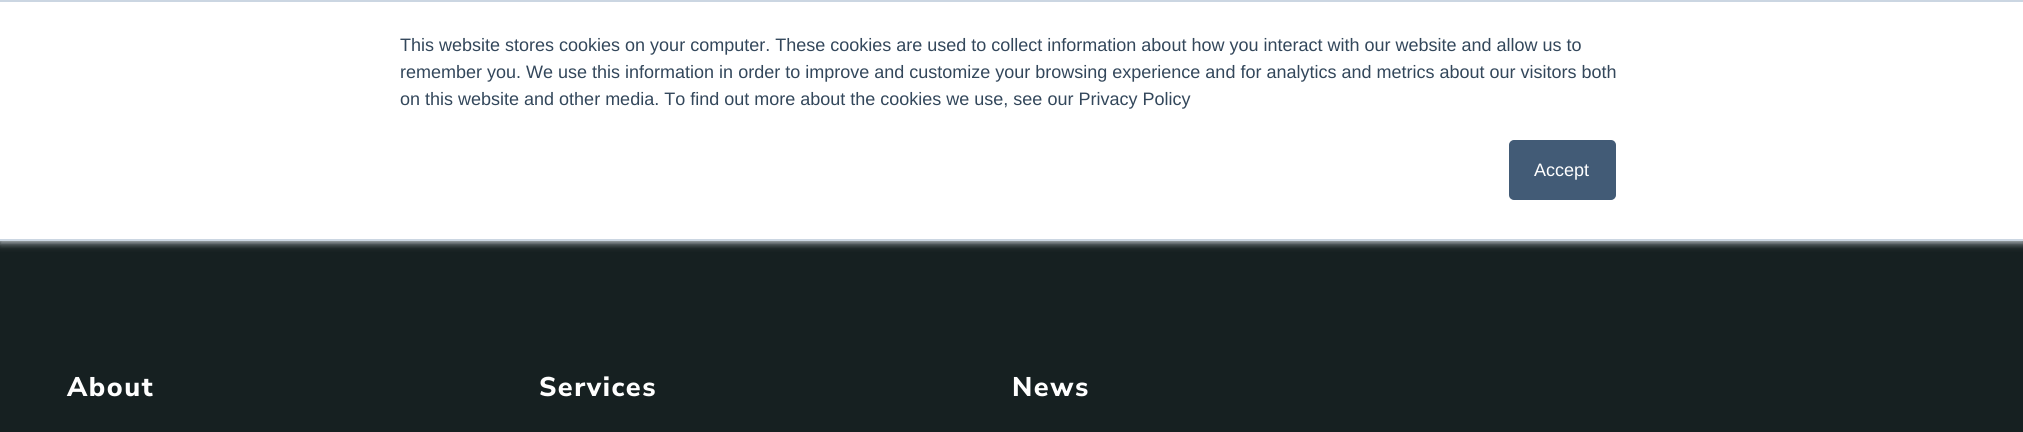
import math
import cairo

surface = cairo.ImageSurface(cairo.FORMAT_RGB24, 2023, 432)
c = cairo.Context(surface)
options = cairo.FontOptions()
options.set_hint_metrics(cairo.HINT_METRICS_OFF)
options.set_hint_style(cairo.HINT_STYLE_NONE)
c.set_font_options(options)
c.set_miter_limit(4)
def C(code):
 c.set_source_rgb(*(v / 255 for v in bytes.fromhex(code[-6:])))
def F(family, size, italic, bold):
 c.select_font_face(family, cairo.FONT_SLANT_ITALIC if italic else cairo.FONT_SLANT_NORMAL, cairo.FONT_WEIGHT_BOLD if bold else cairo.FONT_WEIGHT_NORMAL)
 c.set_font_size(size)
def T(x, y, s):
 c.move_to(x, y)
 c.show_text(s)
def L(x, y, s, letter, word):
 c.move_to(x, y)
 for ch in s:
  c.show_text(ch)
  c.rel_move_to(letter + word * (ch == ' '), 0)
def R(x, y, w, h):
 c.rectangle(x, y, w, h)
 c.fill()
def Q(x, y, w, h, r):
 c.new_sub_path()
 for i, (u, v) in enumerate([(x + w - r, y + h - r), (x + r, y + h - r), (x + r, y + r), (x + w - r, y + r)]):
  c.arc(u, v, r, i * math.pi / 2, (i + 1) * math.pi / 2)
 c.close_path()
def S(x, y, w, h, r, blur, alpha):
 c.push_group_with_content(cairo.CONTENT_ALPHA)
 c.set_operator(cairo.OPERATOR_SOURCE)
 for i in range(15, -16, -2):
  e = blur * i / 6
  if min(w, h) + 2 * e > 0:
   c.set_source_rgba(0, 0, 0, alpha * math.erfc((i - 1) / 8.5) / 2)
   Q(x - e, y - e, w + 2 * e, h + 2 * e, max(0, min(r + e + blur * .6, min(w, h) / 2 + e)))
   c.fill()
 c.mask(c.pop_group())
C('162021')
c.paint()
C('eaf0f6')
S(0,2,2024,240,0,4,1)
C('ffffff')
R(0,2,2023,237)
C('cbd6e2')
R(0,0,2023,2)
R(0,239,2023,2)
F('Liberation Sans',18,0,0)
C('33475b')
T(400,51,'This website stores cookies on your computer. These cookies are used to collect information about how you interact with our website and allow us to')
T(400,78,'remember you. We use this information in order to improve and customize your browsing experience and for analytics and metrics about our visitors both')
T(400,105,'on this website and other media. To find out more about the cookies we use, see our Privacy Policy')
C('425b76')
Q(1510,141,105,58,4)
c.fill_preserve()
c.stroke()
C('ffffff')
T(1534,176,'Accept')
F('Nunito Sans ExtraBold',27,0,0)
L(67,396,'About',1.5,0)
L(539,396,'Services',1.5,0)
L(1012,396,'News',1.5,0)
surface.write_to_png('o.png')
